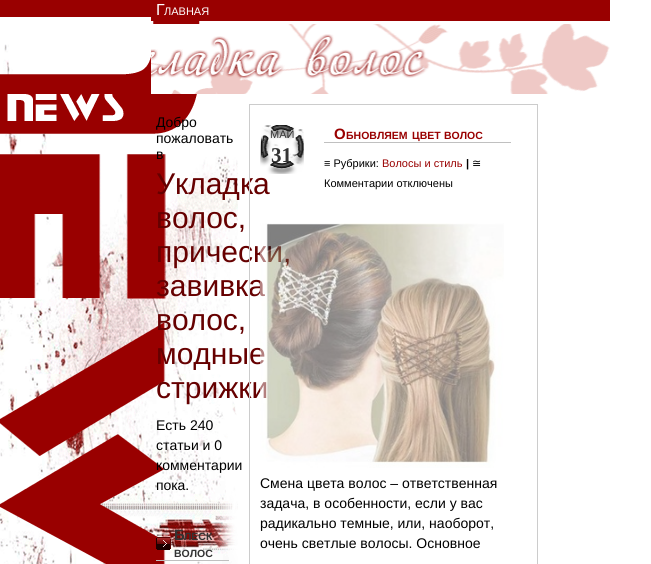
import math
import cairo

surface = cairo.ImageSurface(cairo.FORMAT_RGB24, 651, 564)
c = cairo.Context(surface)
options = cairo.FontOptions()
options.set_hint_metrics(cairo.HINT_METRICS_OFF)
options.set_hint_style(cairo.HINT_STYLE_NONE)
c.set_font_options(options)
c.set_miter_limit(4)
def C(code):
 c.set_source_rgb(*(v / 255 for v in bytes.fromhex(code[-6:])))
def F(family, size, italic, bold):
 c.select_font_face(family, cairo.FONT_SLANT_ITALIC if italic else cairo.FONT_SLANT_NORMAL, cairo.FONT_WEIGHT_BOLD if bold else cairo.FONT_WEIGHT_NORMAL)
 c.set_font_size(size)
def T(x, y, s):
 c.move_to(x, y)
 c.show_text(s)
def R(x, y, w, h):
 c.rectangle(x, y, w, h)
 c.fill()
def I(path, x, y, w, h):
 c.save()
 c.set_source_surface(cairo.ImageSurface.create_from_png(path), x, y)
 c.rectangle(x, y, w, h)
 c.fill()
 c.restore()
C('ffffff')
c.paint()
I('1.png',0,0,238,564)
C('990000')
R(151,0,459,21)
F('Liberation Sans',16,0,0)
C('ffffff')
T(156,15,'Г')
F('Liberation Sans',11,0,0)
T(164,15,'ЛАВНАЯ')
I('2.png',151,24,459,70)
F('Liberation Sans',14,0,0)
C('000000')
T(156,127,'Добро')
T(156,143,'пожаловать')
T(156,159,'в')
F('Liberation Sans',30,0,0)
C('660000')
T(156,194,'Укладка')
T(156,228,'волос,')
T(156,262,'прически,')
T(156,296,'завивка')
T(156,330,'волос,')
T(156,364,'модные')
T(156,398,'стрижки')
F('Liberation Sans',14,0,0)
C('000000')
T(156,430,'Есть 240')
T(156,450,'статьи и 0')
T(156,470,'комментарии')
T(156,490,'пока.')
I('3.png',156,537,15,13)
C('c0c0c0')
R(156,560,73,1)
F('Liberation Sans',15,0,1)
C('333333')
T(174,540,'Б')
F('Liberation Sans',10.5,0,1)
T(184,540,'ЛЕСК')
T(174,557,'ВОЛОС')
c.rectangle(249.5,104.5,288,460)
C('cccccc')
c.set_line_width(1)
c.stroke()
I('4.png',260,125,44,49)
F('Liberation Sans',11,0,0)
C('333333')
T(270,138,'МАЙ')
F('Liberation Serif',21,0,1)
T(271,162,'31')
C('c0c0c0')
R(324,142,187,1)
F('Liberation Sans',15,0,1)
C('990000')
T(334,139,'О')
F('Liberation Sans',10.5,0,1)
T(346,139,'БНОВЛЯЕМ')
T(412,139,'ЦВЕТ')
T(444,139,'ВОЛОС')
F('Liberation Sans',11,0,0)
C('000000')
T(324,167,'≡ Рубрики:')
C('990000')
T(382,167,'Волосы и стиль')
F('Liberation Sans',11,0,1)
C('000000')
T(466,167,'|')
F('DejaVu Sans',11,0,0)
T(472,167,'≅')
F('Liberation Sans',11,0,0)
T(324,187,'Комментарии отключены')
I('5.png',260,223,244,245)
F('Liberation Sans',14,0,0)
T(260,488,'Смена цвета волос – ответственная')
T(260,508,'задача, в особенности, если у вас')
T(260,528,'радикально темные, или, наоборот,')
T(260,548,'очень светлые волосы. Основное')
surface.write_to_png('o.png')
